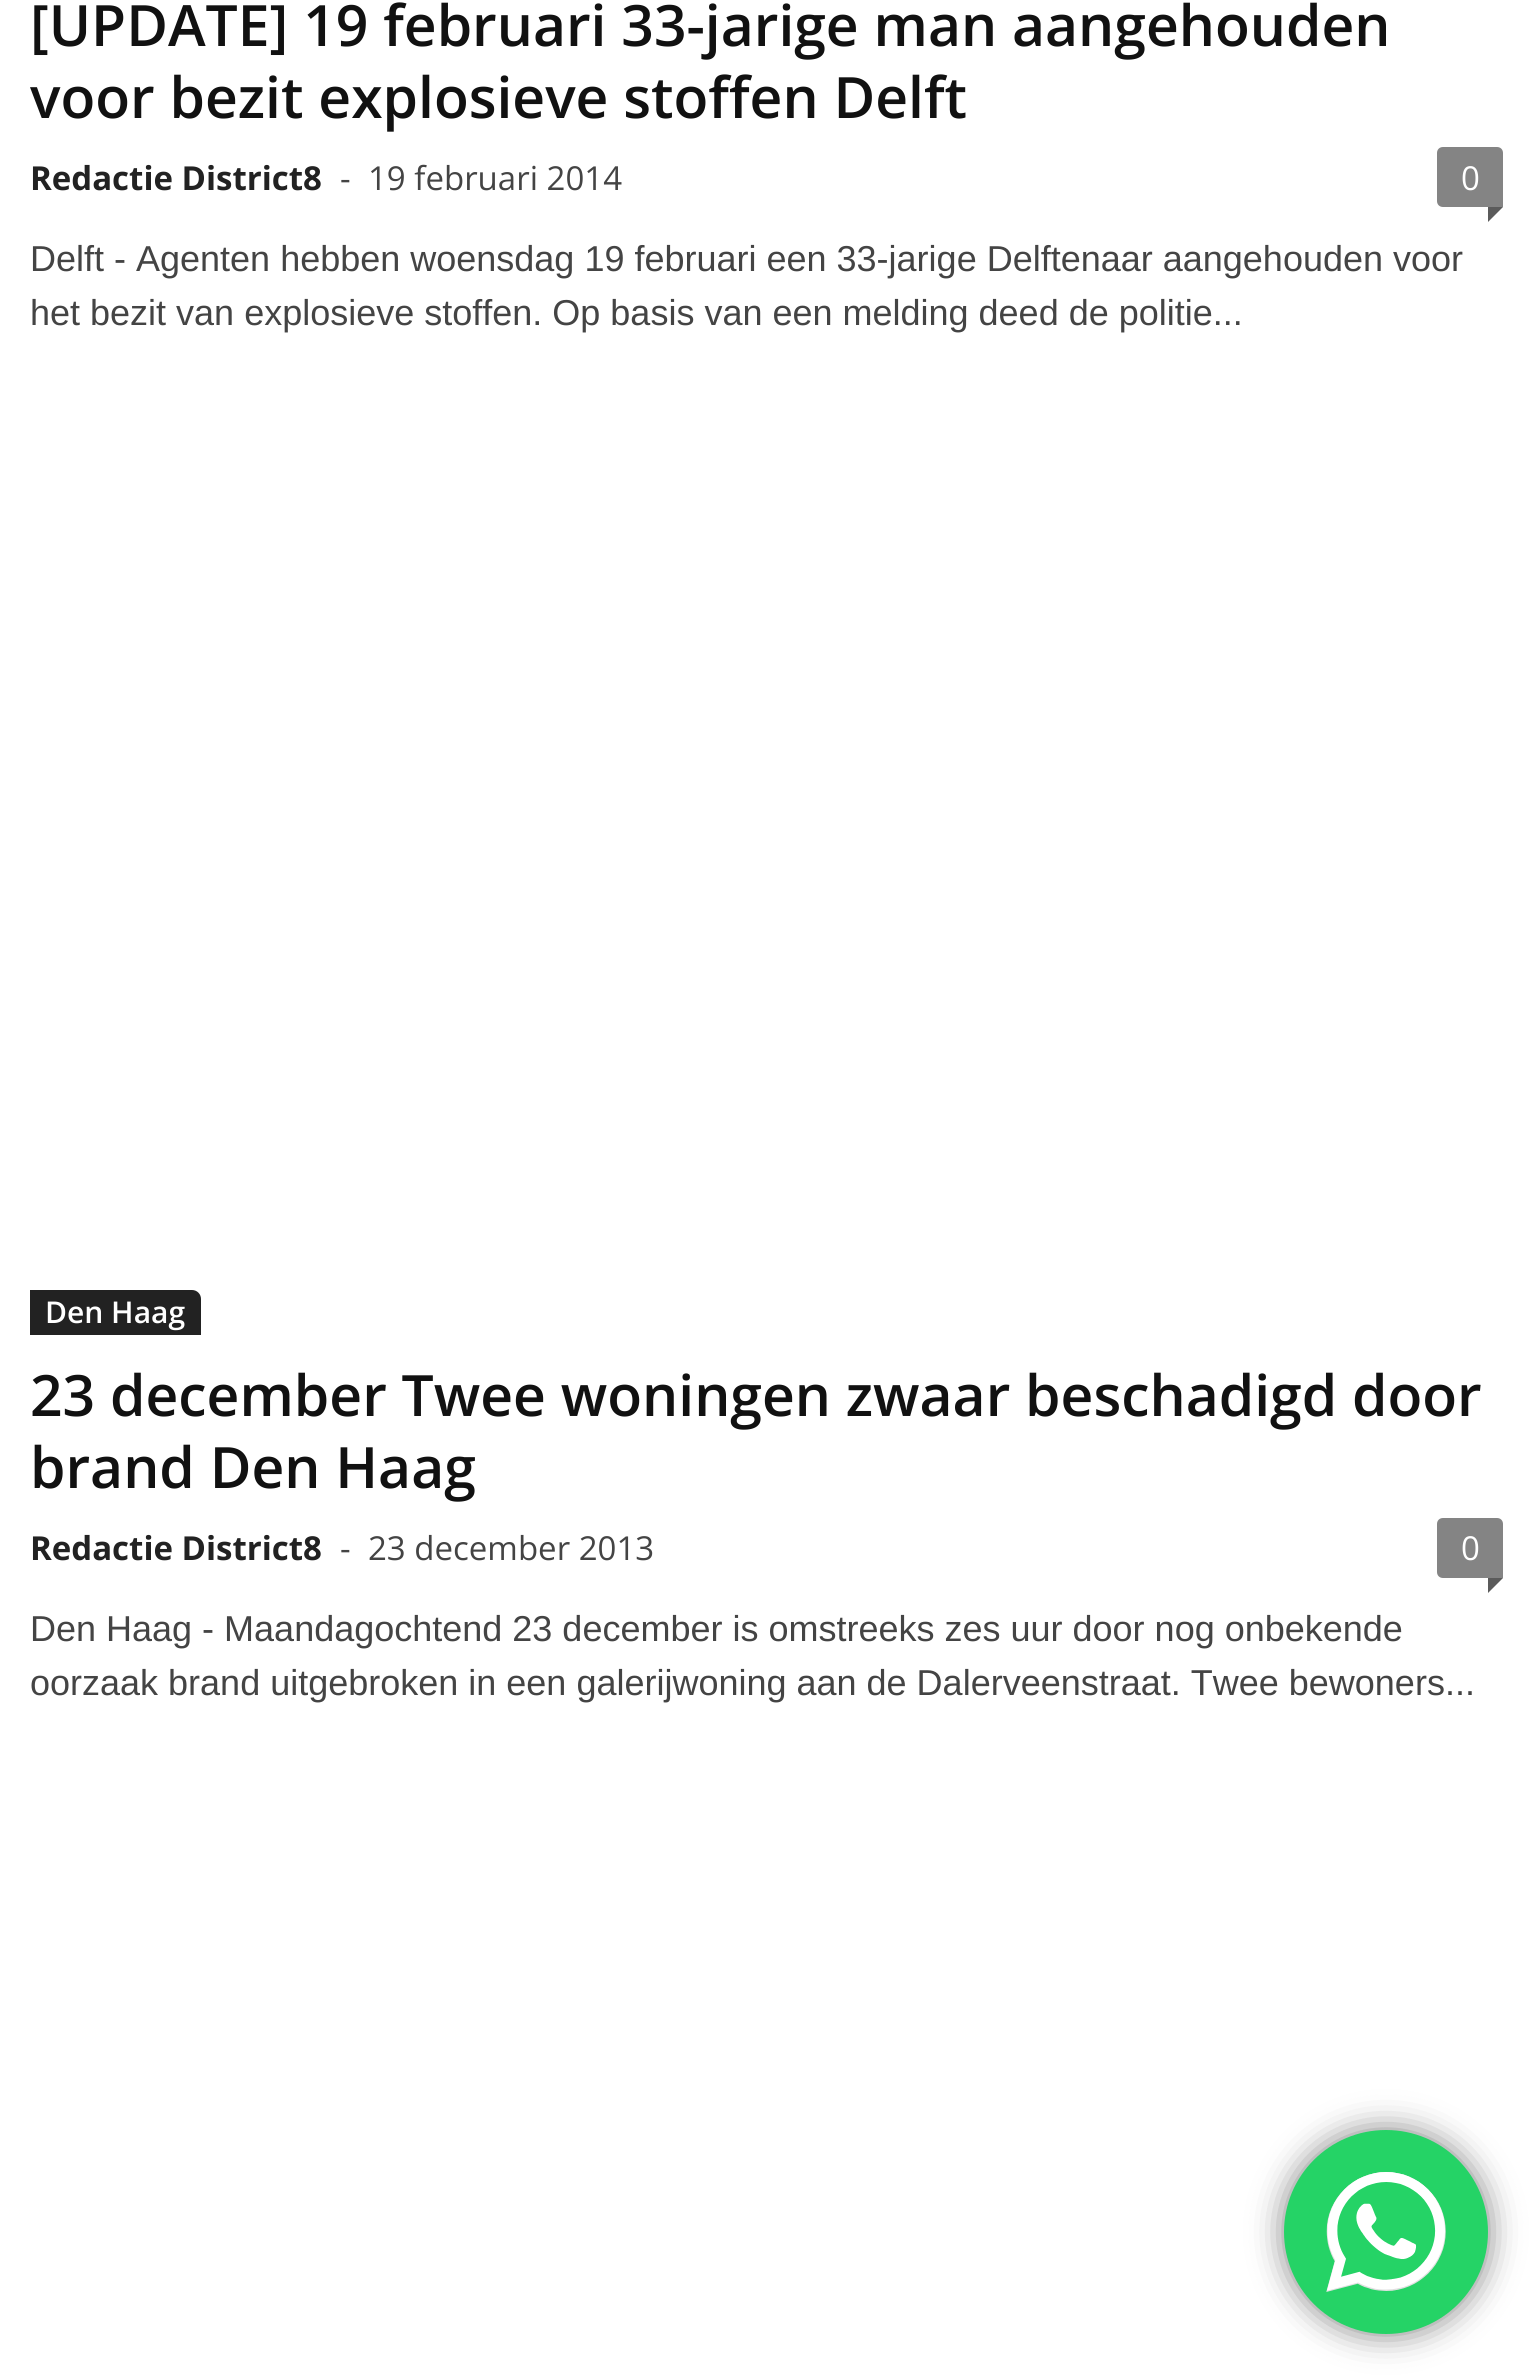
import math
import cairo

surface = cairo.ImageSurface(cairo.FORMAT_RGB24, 1532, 2379)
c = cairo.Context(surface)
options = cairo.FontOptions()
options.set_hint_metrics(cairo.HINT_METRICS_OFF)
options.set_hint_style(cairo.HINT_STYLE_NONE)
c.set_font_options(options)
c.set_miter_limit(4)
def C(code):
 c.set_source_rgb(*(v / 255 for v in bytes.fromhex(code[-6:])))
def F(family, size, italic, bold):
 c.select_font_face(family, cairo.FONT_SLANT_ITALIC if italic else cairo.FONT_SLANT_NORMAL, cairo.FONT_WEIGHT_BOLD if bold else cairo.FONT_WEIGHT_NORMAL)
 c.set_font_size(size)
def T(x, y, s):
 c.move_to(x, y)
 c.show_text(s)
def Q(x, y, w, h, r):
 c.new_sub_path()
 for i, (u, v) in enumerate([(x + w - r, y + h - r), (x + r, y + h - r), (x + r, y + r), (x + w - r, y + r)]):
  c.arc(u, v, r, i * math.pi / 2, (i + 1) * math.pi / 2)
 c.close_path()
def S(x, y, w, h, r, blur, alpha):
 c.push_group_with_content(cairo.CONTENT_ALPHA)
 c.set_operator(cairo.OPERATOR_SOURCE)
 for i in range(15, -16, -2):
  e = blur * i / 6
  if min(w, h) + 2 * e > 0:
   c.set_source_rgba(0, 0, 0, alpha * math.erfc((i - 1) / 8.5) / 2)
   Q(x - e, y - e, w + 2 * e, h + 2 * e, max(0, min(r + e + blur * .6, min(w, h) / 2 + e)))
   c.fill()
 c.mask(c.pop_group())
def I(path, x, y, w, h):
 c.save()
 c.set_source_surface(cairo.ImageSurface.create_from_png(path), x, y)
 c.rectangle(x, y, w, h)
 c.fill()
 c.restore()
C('ffffff')
c.paint()
F('Open Sans SemiBold',57,0,0)
C('111111')
T(30,46,'[UPDATE] 19 februari 33-jarige man aangehouden')
T(30,118,'voor bezit explosieve stoffen Delft')
F('Open Sans',33,0,1)
C('222222')
T(30,190,'Redactie District8')
F('Open Sans',33,0,0)
C('444444')
T(340,190,'-')
T(368,190,'19 februari 2014')
C('848484')
c.new_path()
c.move_to(1443,147)
c.line_to(1497,147)
c.curve_to(1500.5,147,1503,149.5,1503,153)
c.line_to(1503,207)
c.line_to(1443,207)
c.curve_to(1439.5,207,1437,204.5,1437,201)
c.line_to(1437,153)
c.curve_to(1437,149.5,1439.5,147,1443,147)
c.close_path()
c.fill()
C('ffffff')
T(1461,190,'0')
C('5b5b5b')
c.new_path()
c.move_to(1488,207)
c.line_to(1503,207)
c.line_to(1488,222)
c.close_path()
c.fill()
F('Liberation Sans',36,0,0)
C('444444')
T(30,271,'Delft - Agenten hebben woensdag 19 februari een 33-jarige Delftenaar aangehouden voor')
T(30,325,'het bezit van explosieve stoffen. Op basis van een melding deed de politie...')
C('222222')
c.new_path()
c.move_to(30,1290)
c.line_to(192,1290)
c.curve_to(197,1290,201,1294,201,1299)
c.line_to(201,1335)
c.line_to(30,1335)
c.close_path()
c.fill()
F('Open Sans SemiBold',30,0,0)
C('ffffff')
T(45,1323,'Den Haag')
F('Open Sans SemiBold',57,0,0)
C('111111')
T(30,1416,'23 december Twee woningen zwaar beschadigd door')
T(30,1488,'brand Den Haag')
F('Open Sans',33,0,1)
C('222222')
T(30,1560,'Redactie District8')
F('Open Sans',33,0,0)
C('444444')
T(340,1560,'-')
T(368,1560,'23 december 2013')
C('848484')
c.new_path()
c.move_to(1443,1518)
c.line_to(1497,1518)
c.curve_to(1500.5,1518,1503,1520.5,1503,1524)
c.line_to(1503,1578)
c.line_to(1443,1578)
c.curve_to(1439.5,1578,1437,1575.5,1437,1572)
c.line_to(1437,1524)
c.curve_to(1437,1520.5,1439.5,1518,1443,1518)
c.close_path()
c.fill()
C('ffffff')
T(1461,1560,'0')
C('5b5b5b')
c.new_path()
c.move_to(1488,1578)
c.line_to(1503,1578)
c.line_to(1488,1593)
c.close_path()
c.fill()
F('Liberation Sans',36,0,0)
C('444444')
T(30,1641,'Den Haag - Maandagochtend 23 december is omstreeks zes uur door nog onbekende')
T(30,1695,'oorzaak brand uitgebroken in een galerijwoning aan de Dalerveenstraat. Twee bewoners...')
C('000000')
S(1284,2130,204,204,102,16.5,.5)
C('25d366')
c.arc(1386,2232,102,0,2 * math.pi)
c.fill()
I('1.png',1326,2172,120,120)
surface.write_to_png('o.png')
